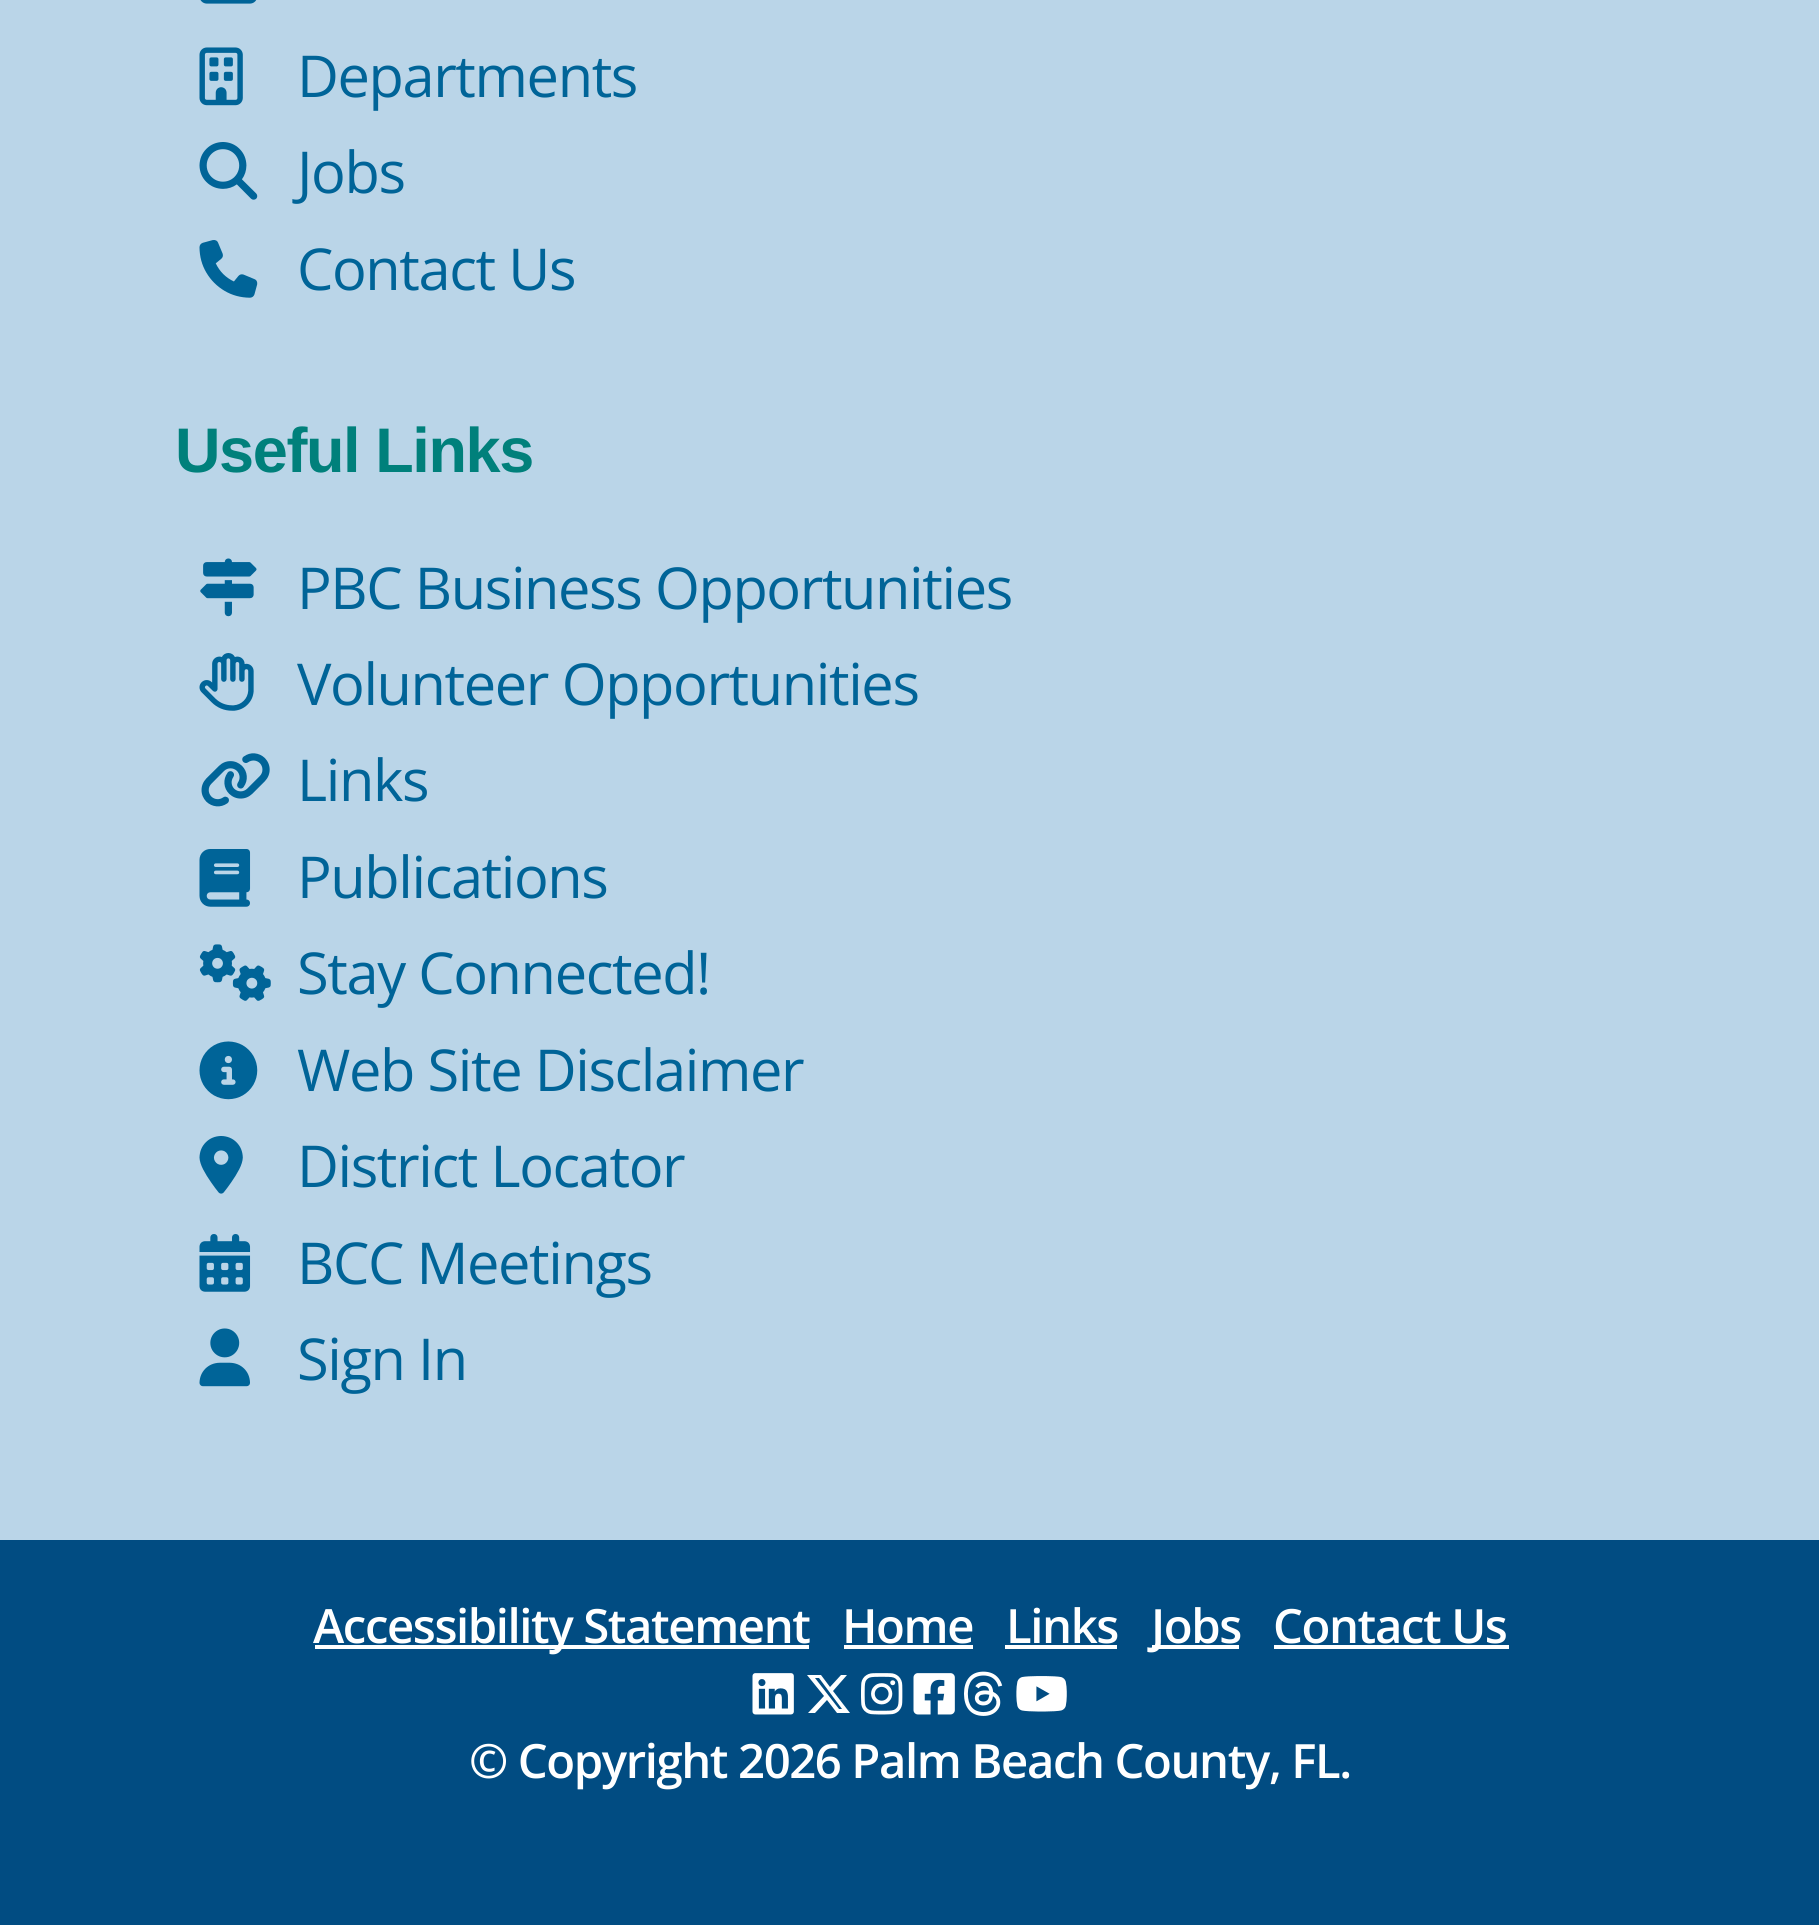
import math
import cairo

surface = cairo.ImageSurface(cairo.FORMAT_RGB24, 1819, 1925)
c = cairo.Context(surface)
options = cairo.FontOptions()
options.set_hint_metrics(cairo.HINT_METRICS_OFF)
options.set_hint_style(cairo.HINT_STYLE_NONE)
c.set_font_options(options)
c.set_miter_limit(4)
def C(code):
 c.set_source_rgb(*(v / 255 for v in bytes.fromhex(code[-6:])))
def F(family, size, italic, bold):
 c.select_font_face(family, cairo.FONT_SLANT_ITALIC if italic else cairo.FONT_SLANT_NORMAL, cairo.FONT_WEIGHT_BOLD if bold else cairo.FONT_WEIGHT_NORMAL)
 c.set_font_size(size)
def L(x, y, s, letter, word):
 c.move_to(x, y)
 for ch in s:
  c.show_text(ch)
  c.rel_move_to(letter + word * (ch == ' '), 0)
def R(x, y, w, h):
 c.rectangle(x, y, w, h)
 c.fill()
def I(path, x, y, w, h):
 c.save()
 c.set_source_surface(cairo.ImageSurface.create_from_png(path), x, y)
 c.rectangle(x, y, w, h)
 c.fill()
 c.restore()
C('bad5e8')
c.paint()
I('1.png',200,0,57,4)
I('2.png',199,47,44,59)
F('Open Sans',57.75,0,0)
C('006498')
L(297,97,'Departments',-1.4,0)
I('3.png',199,142,59,58)
L(297,193,'Jobs',-1.4,0)
I('4.png',199,240,59,58)
L(297,290,'Contact Us',-1.4,0)
F('Liberation Sans',63,0,1)
C('00807b')
L(175,472,'Useful Links',-1.4,0)
I('5.png',200,558,57,59)
F('Open Sans',57.75,0,0)
C('006498')
L(297,609,'PBC Business Opportunities',-1.4,0)
I('6.png',199,653,55,58)
L(297,705,'Volunteer Opportunities',-1.4,0)
I('7.png',201,753,69,54)
L(297,801,'Links',-1.4,0)
I('8.png',199,849,52,58)
L(297,898,'Publications',-1.4,0)
I('9.png',199,944,72,57)
L(297,994,'Stay Connected!',-1.4,0)
I('10.png',199,1041,59,59)
L(297,1091,'Web Site Disclaimer',-1.4,0)
I('11.png',199,1136,44,58)
L(297,1187,'District Locator',-1.4,0)
I('12.png',199,1234,52,58)
L(297,1284,'BCC Meetings',-1.4,0)
I('13.png',199,1328,51,59)
L(297,1380,'Sign In',-1.4,0)
C('014c82')
R(0,1540,1819,385)
C('ffffff')
R(315,1645,494,4)
F('Open Sans SemiBold',47.25,0,0)
L(313,1643,'Accessibility Statement',-1.4,0)
L(842,1643,'Home',-1.4,0)
R(844,1645,129,4)
L(1006,1643,'Links',-1.4,0)
R(1005,1645,112,4)
R(1152,1645,87,4)
L(1151,1643,'Jobs',-1.4,0)
L(1273,1643,'Contact Us',-1.4,0)
R(1274,1645,235,4)
I('14.png',752,1673,42,42)
c.new_path()
c.move_to(841,1675)
c.line_to(847,1675)
c.line_to(833,1691)
c.line_to(850,1713)
c.line_to(837,1713)
c.line_to(827,1700)
c.line_to(815,1713)
c.line_to(808,1713)
c.line_to(824,1696)
c.line_to(807,1675)
c.line_to(821,1675)
c.line_to(830,1687)
c.close_path()
c.move_to(839,1709)
c.line_to(842,1709)
c.line_to(819,1678)
c.line_to(815,1678)
c.close_path()
c.fill()
I('15.png',861,1673,42,42)
I('16.png',913,1673,42,42)
I('17.png',964,1671,39,45)
I('18.png',1016,1676,51,36)
L(469,1778,'© Copyright 2026 Palm Beach County, FL.',-1.4,0)
surface.write_to_png('o.png')
